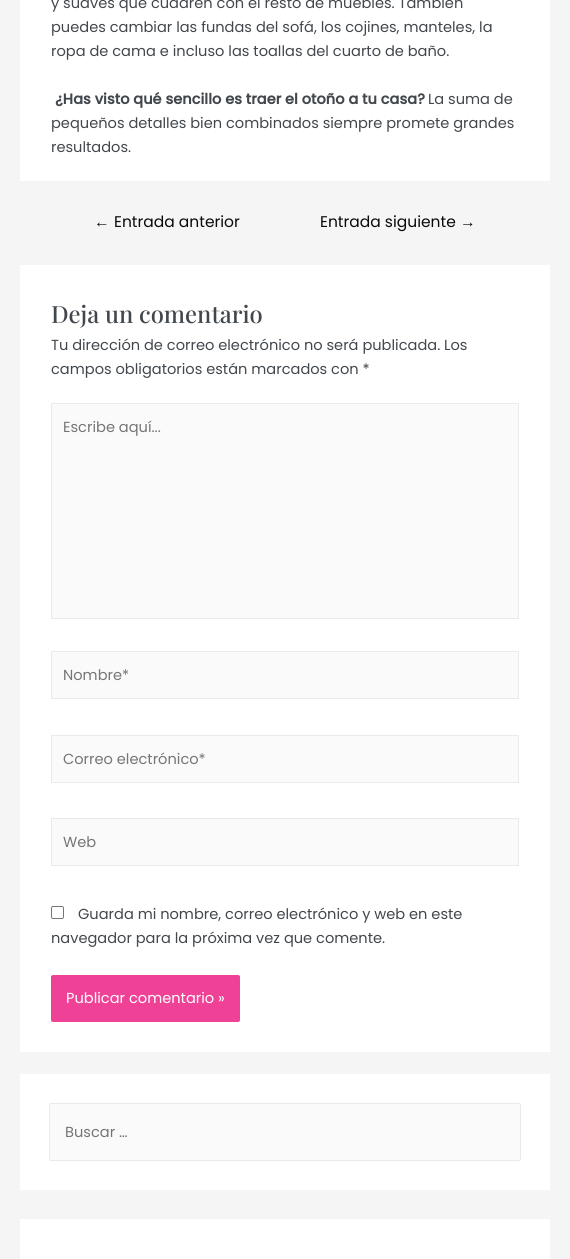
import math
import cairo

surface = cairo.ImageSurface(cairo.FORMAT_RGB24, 570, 1259)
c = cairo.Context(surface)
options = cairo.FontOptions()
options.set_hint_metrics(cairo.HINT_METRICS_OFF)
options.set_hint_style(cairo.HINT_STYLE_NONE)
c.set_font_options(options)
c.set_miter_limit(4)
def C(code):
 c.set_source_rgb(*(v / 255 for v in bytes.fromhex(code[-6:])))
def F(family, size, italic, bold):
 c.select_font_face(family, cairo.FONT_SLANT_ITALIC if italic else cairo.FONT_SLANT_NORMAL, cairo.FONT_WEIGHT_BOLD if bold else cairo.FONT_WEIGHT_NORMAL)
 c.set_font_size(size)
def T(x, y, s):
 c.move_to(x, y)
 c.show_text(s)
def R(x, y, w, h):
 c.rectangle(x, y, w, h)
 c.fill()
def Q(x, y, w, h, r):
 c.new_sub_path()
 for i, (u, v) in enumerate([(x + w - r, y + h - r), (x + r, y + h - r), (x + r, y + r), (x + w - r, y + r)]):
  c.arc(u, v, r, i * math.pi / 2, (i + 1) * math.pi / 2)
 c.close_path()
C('f5f5f5')
c.paint()
C('ffffff')
R(20,0,530,181)
F('Poppins',14.6,0,0)
C('41474c')
T(51,8,'y suaves que cuadren con el resto de muebles. También')
T(51,32,'puedes cambiar las fundas del sofá, los cojines, manteles, la')
T(51,56,'ropa de cama e incluso las toallas del cuarto de baño.')
F('Poppins',14.6,0,1)
T(55,104,'¿Has visto qué sencillo es traer el otoño a tu casa?')
F('Poppins',14.6,0,0)
T(428,104,'La suma de')
T(51,128,'pequeños detalles bien combinados siempre promete grandes')
T(51,152,'resultados.')
F('Liberation Sans',15.5,0,0)
C('0a0a0a')
T(94,227,'←')
F('Poppins',15.5,0,0)
T(114,227,'Entrada anterior')
T(320,227,'Entrada siguiente')
F('Liberation Sans',15.5,0,0)
T(460,227,'→')
C('ffffff')
R(20,265,530,787)
F('Playfair Display Medium',23.75,0,0)
C('41474c')
T(51,323,'Deja un comentario')
F('Poppins',14.6,0,0)
T(51,350,'Tu dirección de correo electrónico no será publicada. Los')
T(51,374,'campos obligatorios están marcados con *')
C('fafafa')
c.rectangle(51.5,403.5,467,215)
c.fill_preserve()
C('eaeaea')
c.set_line_width(1)
c.stroke()
C('757575')
T(63,432,'Escribe aquí...')
C('fafafa')
c.rectangle(51.5,651.5,467,47)
c.fill_preserve()
C('eaeaea')
c.stroke()
C('757575')
T(63,680,'Nombre*')
C('fafafa')
c.rectangle(51.5,735.5,467,47)
c.fill_preserve()
C('eaeaea')
c.stroke()
C('757575')
T(63,764,'Correo electrónico*')
C('fafafa')
c.rectangle(51.5,818.5,467,47)
c.fill_preserve()
C('eaeaea')
c.stroke()
C('757575')
T(63,847,'Web')
Q(51.5,906.5,12,12,1.5)
C('767676')
c.stroke()
C('41474c')
T(78,919,'Guarda mi nombre, correo electrónico y web en este')
T(51,943,'navegador para la próxima vez que comente.')
C('ef4297')
Q(51,975,189,47,2)
c.fill()
C('ffffff')
T(66,1003,'Publicar comentario »')
R(20,1074,530,116)
C('fafafa')
Q(49.5,1103.5,471,57,1.5)
c.fill_preserve()
C('eaeaea')
c.stroke()
C('757575')
T(65,1137,'Buscar …')
C('ffffff')
R(20,1219,530,40)
surface.write_to_png('o.png')
